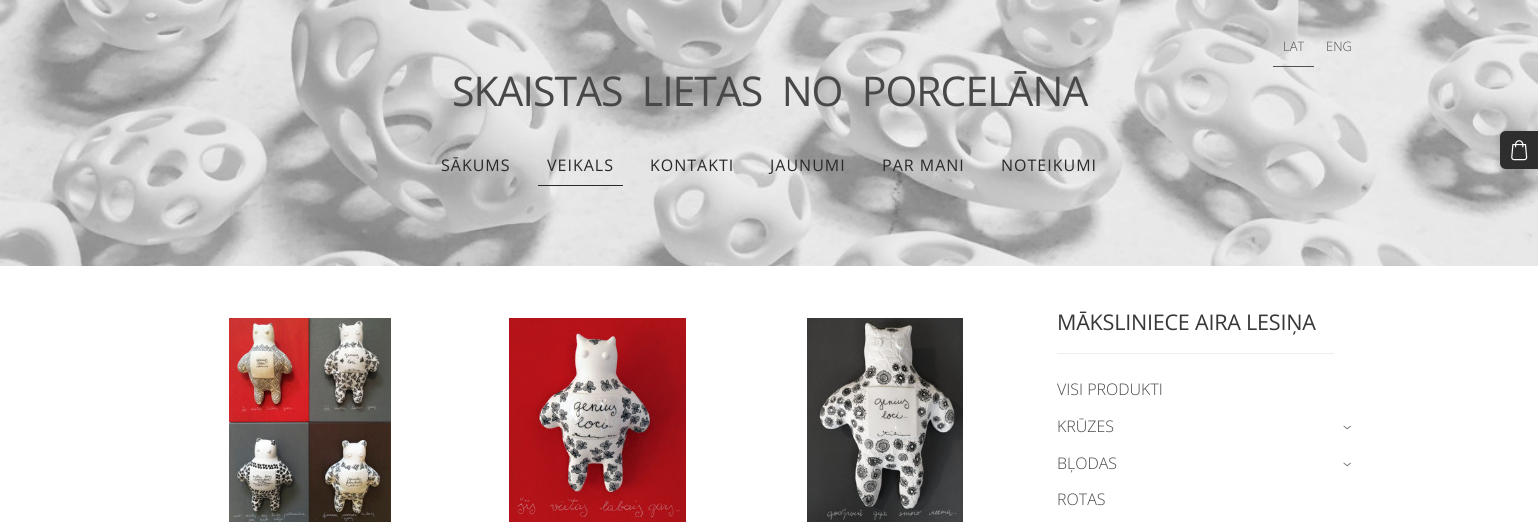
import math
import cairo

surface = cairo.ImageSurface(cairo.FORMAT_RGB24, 1538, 522)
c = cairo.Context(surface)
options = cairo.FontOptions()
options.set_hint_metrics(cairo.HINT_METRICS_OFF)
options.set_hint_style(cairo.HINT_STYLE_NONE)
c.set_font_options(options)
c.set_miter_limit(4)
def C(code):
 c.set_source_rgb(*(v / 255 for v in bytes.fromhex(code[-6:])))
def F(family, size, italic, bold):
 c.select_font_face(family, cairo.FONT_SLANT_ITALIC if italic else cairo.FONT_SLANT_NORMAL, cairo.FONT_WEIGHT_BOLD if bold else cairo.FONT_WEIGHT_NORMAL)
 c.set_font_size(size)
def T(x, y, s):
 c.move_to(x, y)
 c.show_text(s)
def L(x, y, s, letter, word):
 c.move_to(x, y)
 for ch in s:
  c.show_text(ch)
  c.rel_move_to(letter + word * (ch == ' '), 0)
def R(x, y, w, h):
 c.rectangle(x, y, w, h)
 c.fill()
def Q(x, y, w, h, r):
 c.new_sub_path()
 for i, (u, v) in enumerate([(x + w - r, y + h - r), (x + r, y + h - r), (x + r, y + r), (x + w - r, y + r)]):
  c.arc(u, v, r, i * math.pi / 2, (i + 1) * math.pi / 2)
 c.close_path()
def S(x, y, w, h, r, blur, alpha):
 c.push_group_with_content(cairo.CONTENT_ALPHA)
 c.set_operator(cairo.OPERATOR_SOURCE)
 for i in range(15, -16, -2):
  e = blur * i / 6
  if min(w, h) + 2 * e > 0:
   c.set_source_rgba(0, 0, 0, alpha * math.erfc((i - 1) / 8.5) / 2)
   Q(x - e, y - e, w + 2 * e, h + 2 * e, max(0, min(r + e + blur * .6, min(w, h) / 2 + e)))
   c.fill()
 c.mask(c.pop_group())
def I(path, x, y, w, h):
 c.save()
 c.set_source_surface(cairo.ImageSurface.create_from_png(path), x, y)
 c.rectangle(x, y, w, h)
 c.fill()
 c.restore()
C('ffffff')
c.paint()
I('1.png',0,0,1538,266)
C('515151')
R(1273,66,41,1)
F('Open Sans Light',13,0,0)
T(1283,51,'LAT')
T(1326,51,'ENG')
F('Open Sans',41,0,0)
C('484848')
L(452,106,'SKAISTAS  LIETAS  NO  PORCELĀNA',-1,0)
F('Open Sans',16,0,0)
C('292929')
L(441,171,'SĀKUMS',1,0)
R(538,185,85,1)
L(547,171,'VEIKALS',1,0)
L(650,171,'KONTAKTI',1,0)
L(770,171,'JAUNUMI',1,0)
L(882,171,'PAR MANI',1,0)
L(1001,171,'NOTEIKUMI',1,0)
C('000000')
S(1497,130,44,44,9,2.5,.1)
C('2e2e2e')
c.new_path()
c.move_to(1506,131)
c.line_to(1538,131)
c.line_to(1538,169)
c.line_to(1506,169)
c.curve_to(1502.5,169,1500,166.5,1500,163)
c.line_to(1500,137)
c.curve_to(1500,133.5,1502.5,131,1506,131)
c.close_path()
c.fill()
I('2.png',1511,140,17,21)
I('3.png',229,318,162,204)
I('4.png',509,318,177,204)
I('5.png',807,318,156,204)
C('eeeeee')
R(1057,353,277,1)
F('Open Sans',21.6,0,0)
C('383838')
L(1057,330,'MĀKSLINIECE AIRA LESIŅA',-.25,0)
F('Open Sans Light',16,0,0)
C('484848')
T(1057,395,'VISI PRODUKTI')
T(1057,432,'KRŪZES')
F('Open Sans Light',19,0,0)
C('666666')
c.save()
c.translate(1342,425)
c.rotate(90 * math.pi / 180)
T(0,0,'›')
c.restore()
F('Open Sans Light',16,0,0)
C('484848')
T(1057,469,'BĻODAS')
F('Open Sans Light',19,0,0)
C('666666')
c.save()
c.translate(1342,462)
c.rotate(90 * math.pi / 180)
T(0,0,'›')
c.restore()
F('Open Sans Light',16,0,0)
C('484848')
T(1057,505,'ROTAS')
surface.write_to_png('o.png')
